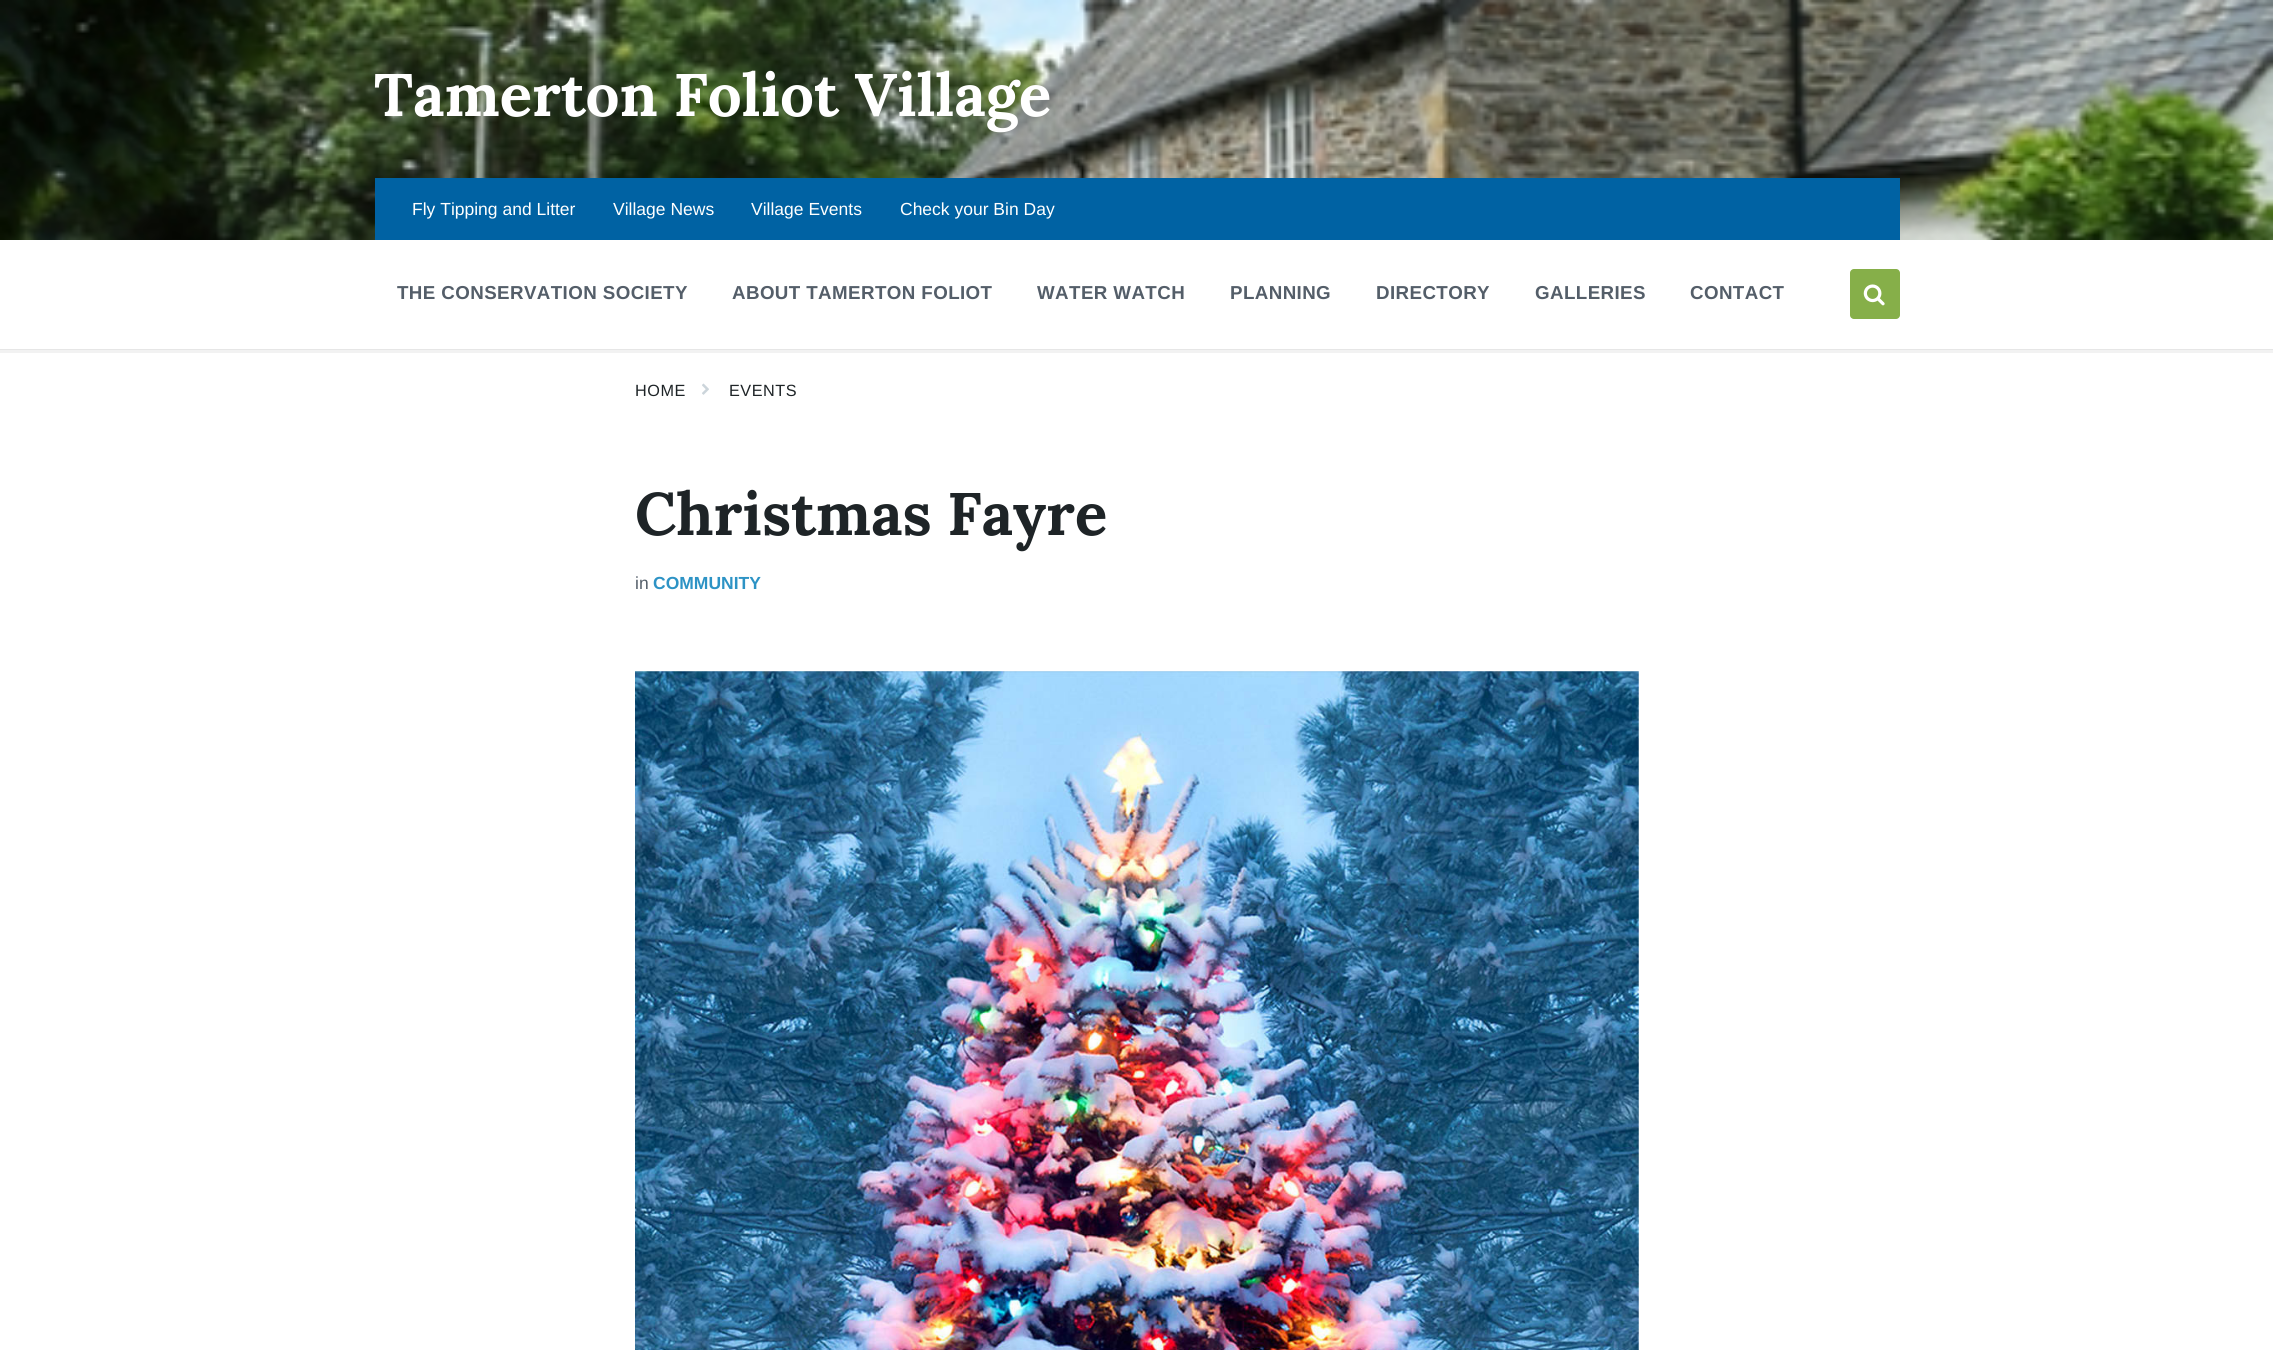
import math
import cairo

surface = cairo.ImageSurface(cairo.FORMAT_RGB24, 2273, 1350)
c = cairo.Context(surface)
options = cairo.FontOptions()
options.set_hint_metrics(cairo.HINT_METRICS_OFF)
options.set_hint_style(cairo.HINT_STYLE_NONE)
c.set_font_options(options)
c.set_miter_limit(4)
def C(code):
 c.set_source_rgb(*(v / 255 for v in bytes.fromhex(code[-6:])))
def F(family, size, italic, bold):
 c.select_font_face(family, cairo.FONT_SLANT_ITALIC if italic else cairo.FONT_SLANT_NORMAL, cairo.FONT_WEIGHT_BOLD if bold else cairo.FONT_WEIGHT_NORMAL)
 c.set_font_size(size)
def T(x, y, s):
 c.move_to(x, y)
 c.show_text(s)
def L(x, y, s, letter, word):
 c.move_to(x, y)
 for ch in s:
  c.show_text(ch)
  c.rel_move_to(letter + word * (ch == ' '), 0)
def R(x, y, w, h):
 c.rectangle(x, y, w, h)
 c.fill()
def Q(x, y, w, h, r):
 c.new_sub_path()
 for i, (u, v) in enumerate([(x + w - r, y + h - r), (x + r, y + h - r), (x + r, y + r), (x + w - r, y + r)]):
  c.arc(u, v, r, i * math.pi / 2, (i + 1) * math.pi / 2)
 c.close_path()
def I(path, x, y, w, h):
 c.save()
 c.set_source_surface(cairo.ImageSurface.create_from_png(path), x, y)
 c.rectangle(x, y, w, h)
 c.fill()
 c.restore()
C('ffffff')
c.paint()
c.rectangle(-.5,239.5,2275,112)
C('f2f2f2')
c.set_line_width(3)
c.stroke()
I('1.png',0,0,2273,240)
F('Lora',60,0,1)
C('ffffff')
T(374,116,'Tamerton Foliot Village')
C('0062a3')
R(375,178,1525,62)
F('Liberation Sans',17.5,0,0)
C('ffffff')
T(412,215,'Fly Tipping and Litter')
T(613,215,'Village News')
T(751,215,'Village Events')
T(900,215,'Check your Bin Day')
R(0,240,2273,109)
C('e6e6e6')
R(0,349,2273,1)
F('Liberation Sans',18.75,0,1)
C('545e69')
L(397,299,'THE CONSERVATION SOCIETY',.4,0)
L(732,299,'ABOUT TAMERTON FOLIOT',.4,0)
L(1037,299,'WATER WATCH',.4,0)
L(1230,299,'PLANNING',.4,0)
L(1376,299,'DIRECTORY',.4,0)
L(1535,299,'GALLERIES',.4,0)
L(1690,299,'CONTACT',.4,0)
C('86af49')
Q(1850,269,50,50,4)
c.fill()
I('2.png',1863,284,22,22)
F('Liberation Sans',16.25,0,0)
C('1e2427')
L(635,396,'HOME',.5,0)
I('3.png',702,383,7,12)
L(729,396,'EVENTS',.5,0)
F('Lora',60,0,1)
T(635,535,'Christmas Fayre')
F('Liberation Sans',17.5,0,0)
C('545e69')
T(635,589,'in')
F('Liberation Sans',17.5,0,1)
C('2d93c5')
T(653,589,'COMMUNITY')
I('4.png',635,671,1004,679)
surface.write_to_png('o.png')
